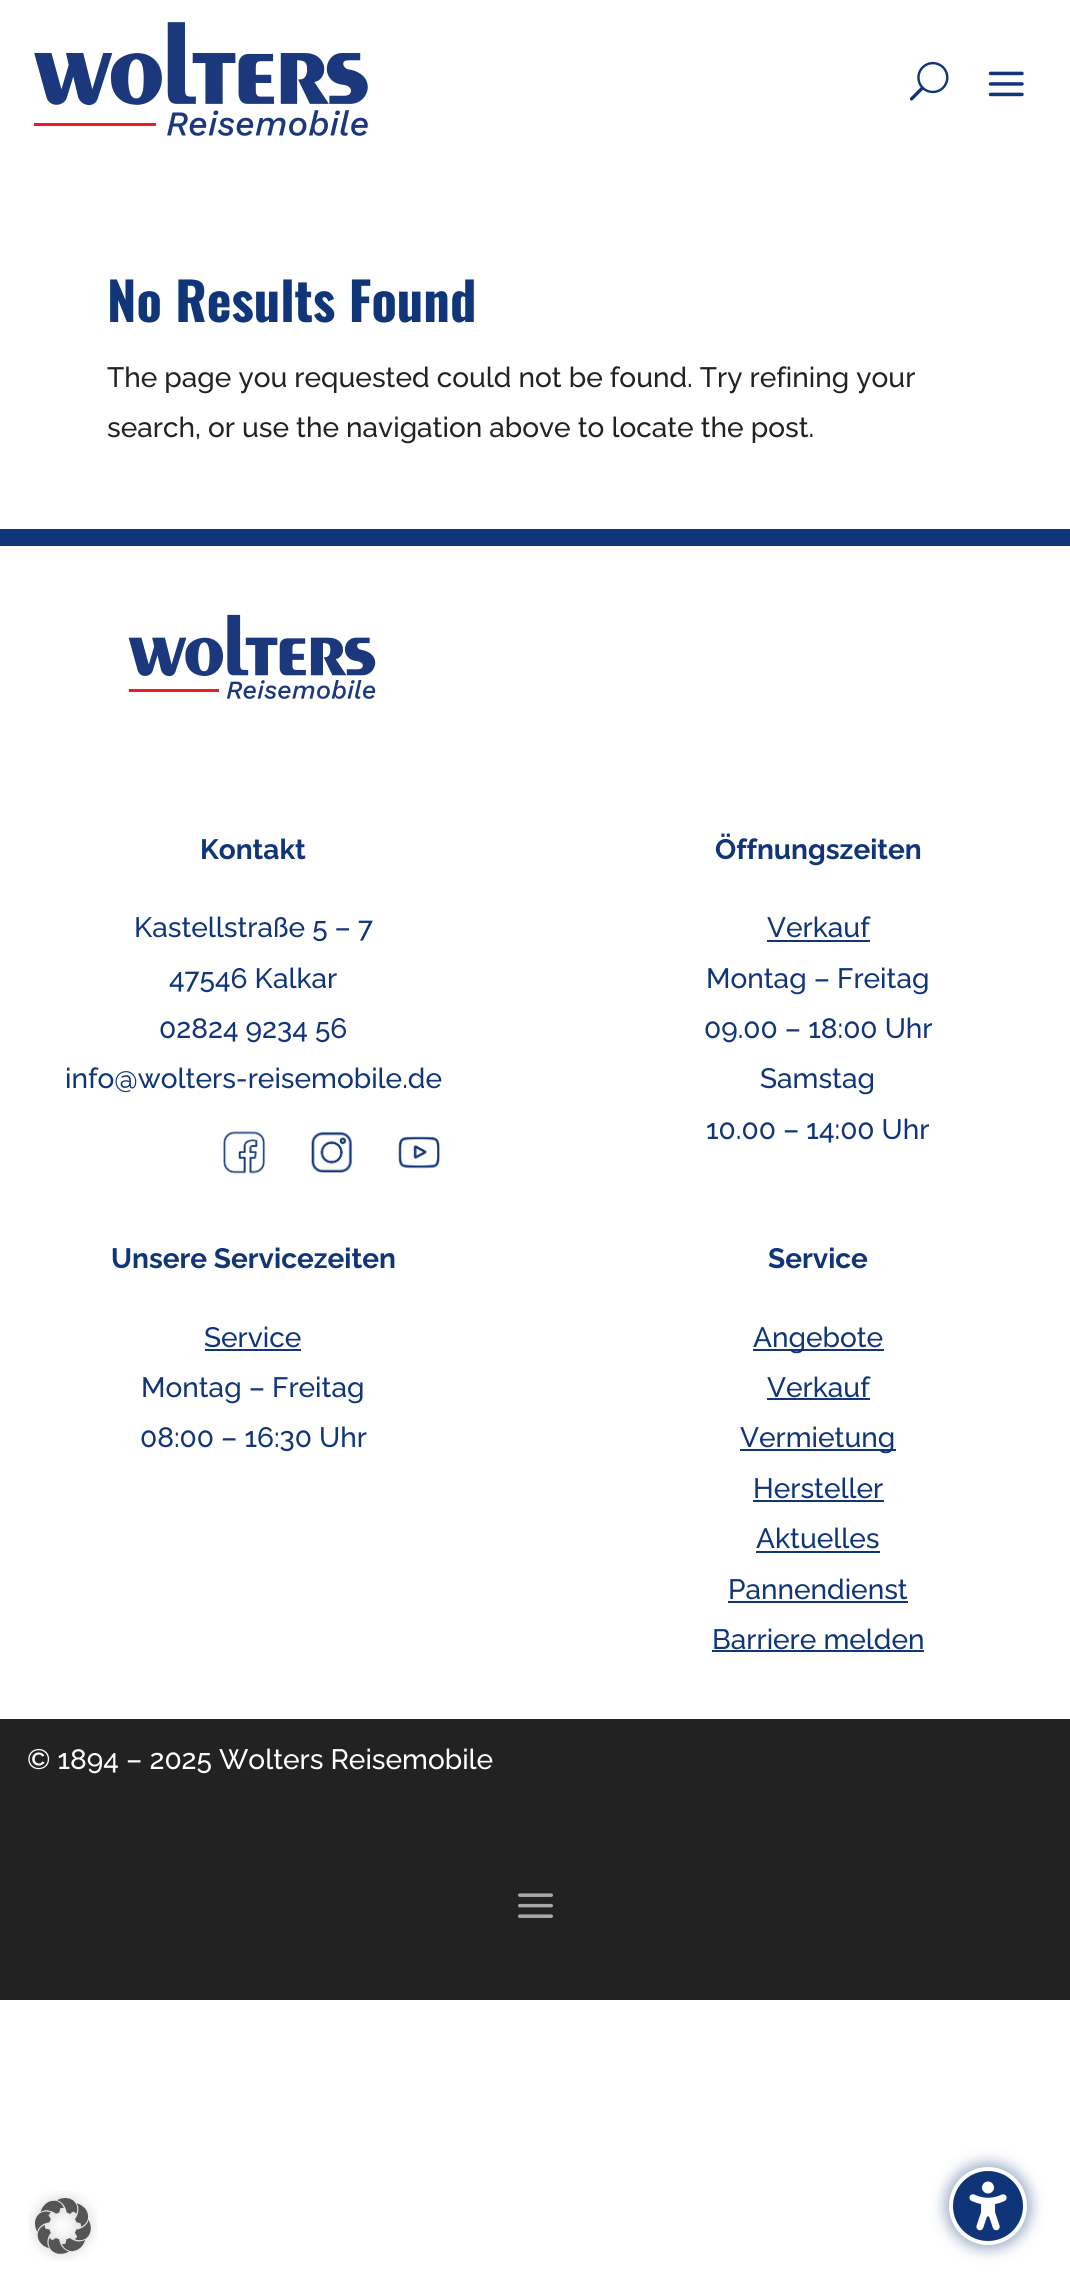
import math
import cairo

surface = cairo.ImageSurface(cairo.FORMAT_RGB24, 1070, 2288)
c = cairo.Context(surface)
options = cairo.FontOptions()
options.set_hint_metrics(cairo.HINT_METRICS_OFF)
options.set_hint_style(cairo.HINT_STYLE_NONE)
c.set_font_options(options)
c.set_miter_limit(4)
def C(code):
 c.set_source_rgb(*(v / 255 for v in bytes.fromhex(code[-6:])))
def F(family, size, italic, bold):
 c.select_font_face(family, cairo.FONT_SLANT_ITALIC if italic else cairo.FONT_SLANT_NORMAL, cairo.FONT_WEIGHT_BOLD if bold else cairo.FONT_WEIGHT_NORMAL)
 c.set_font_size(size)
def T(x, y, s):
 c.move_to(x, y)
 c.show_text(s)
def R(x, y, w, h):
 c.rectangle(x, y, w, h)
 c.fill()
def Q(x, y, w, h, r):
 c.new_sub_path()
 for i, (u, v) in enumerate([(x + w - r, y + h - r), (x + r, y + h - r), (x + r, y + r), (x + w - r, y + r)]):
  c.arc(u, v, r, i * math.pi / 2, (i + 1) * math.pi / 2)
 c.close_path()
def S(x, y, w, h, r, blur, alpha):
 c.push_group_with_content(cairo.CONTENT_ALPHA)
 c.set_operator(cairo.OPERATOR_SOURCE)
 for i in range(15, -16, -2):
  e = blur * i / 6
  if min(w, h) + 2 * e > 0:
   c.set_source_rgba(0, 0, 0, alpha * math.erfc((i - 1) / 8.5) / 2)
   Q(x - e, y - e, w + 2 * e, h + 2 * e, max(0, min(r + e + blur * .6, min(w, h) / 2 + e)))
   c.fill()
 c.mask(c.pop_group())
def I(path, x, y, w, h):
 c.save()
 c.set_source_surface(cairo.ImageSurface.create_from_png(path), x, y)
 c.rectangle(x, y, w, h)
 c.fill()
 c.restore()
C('ffffff')
c.paint()
I('1.png',34,22,334,114)
I('2.png',909,61,40,40)
I('3.png',988,71,36,26)
F('Oswald',52.5,0,1)
C('103578')
T(107,322,'No Results Found')
F('Raleway Medium',28,0,0)
C('222223')
T(107,387,'The page you requested could not be found. Try refining your')
T(107,437,'search, or use the navigation above to locate the post.')
C('103578')
R(0,529,1070,17)
I('4.png',128,614,248,85)
F('Raleway',28,0,1)
T(200,859,'Kontakt')
F('Raleway Medium',28,0,0)
T(134,937,'Kastellstraße 5 – 7')
T(169,988,'47546 Kalkar')
T(159,1038,'02824 9234 56')
T(65,1088,'info@wolters-reisemobile.de')
I('5.png',223,1131,43,43)
I('6.png',311,1131,42,42)
I('7.png',398,1136,42,33)
F('Raleway',28,0,1)
T(715,859,'Öffnungszeiten')
F('Raleway Medium',28,0,0)
T(767,937,'Verkauf')
R(767,940,103,2)
T(706,988,'Montag – Freitag')
T(704,1038,'09.00 – 18:00 Uhr')
T(760,1088,'Samstag')
T(706,1139,'10.00 – 14:00 Uhr')
F('Raleway',28,0,1)
T(111,1268,'Unsere Servicezeiten')
F('Raleway Medium',28,0,0)
T(204,1347,'Service')
R(205,1349,96,2)
T(141,1397,'Montag – Freitag')
T(140,1447,'08:00 – 16:30 Uhr')
F('Raleway',28,0,1)
T(768,1268,'Service')
R(753,1349,131,2)
F('Raleway Medium',28,0,0)
T(753,1347,'Angebote')
T(767,1397,'Verkauf')
R(767,1398,103,2)
R(740,1449,156,2)
T(740,1447,'Vermietung')
T(753,1498,'Hersteller')
R(753,1500,131,2)
T(756,1548,'Aktuelles')
R(756,1551,124,2)
T(728,1599,'Pannendienst')
R(728,1601,180,2)
T(712,1649,'Barriere melden')
R(712,1650,212,2)
C('222223')
R(0,1719,1070,281)
C('ffffff')
T(27,1769,'© 1894 – 2025 Wolters Reisemobile')
I('8.png',518,1893,35,25)
I('9.png',28,2191,70,70)
C('103478')
S(945,2163,86,86,43,7,.4)
C('103478')
c.arc(988,2206,37,0,2 * math.pi)
c.fill_preserve()
C('ffffff')
c.set_line_width(4)
c.stroke()
I('10.png',969,2181,38,50)
surface.write_to_png('o.png')
